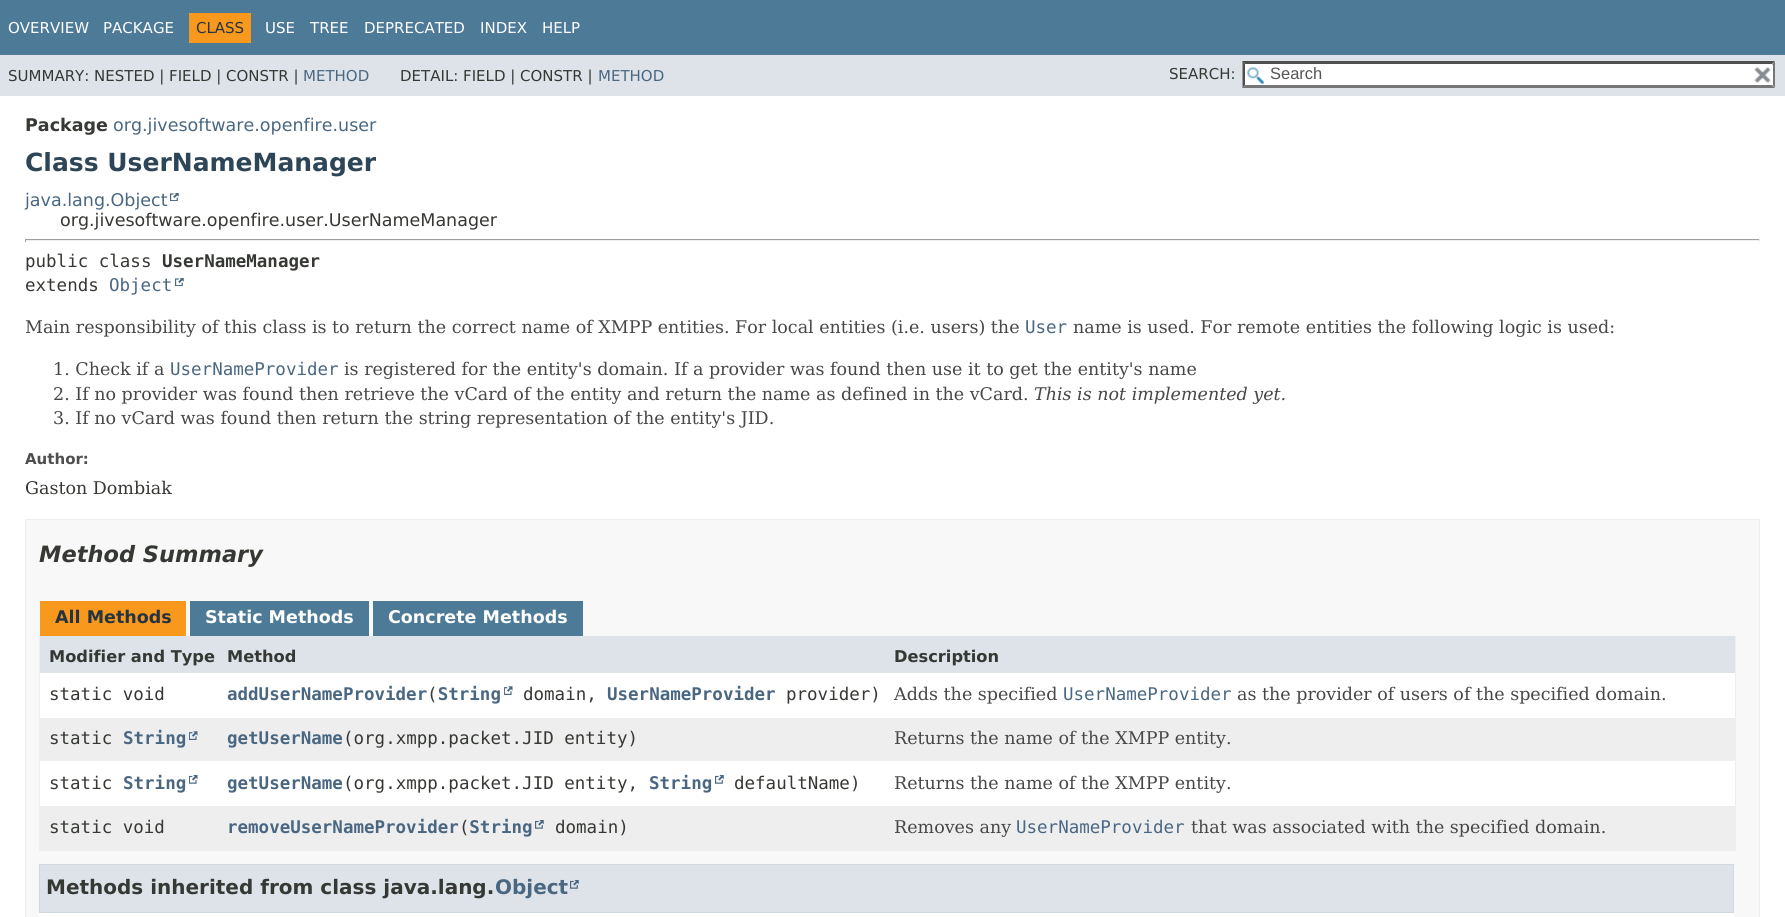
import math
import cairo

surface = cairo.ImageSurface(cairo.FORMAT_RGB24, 1785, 917)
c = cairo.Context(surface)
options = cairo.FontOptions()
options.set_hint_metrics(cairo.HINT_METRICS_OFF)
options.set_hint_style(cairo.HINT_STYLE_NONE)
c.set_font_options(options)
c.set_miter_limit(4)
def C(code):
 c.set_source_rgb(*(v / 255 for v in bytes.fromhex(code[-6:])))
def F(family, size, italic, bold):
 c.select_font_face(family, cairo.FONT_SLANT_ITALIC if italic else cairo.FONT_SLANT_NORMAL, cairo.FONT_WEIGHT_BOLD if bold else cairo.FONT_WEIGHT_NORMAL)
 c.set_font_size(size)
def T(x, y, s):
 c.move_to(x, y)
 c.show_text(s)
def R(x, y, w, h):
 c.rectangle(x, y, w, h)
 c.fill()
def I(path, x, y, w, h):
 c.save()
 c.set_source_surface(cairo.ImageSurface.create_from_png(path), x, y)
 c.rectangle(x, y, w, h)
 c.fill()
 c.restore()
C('ffffff')
c.paint()
C('4d7a97')
R(0,0,1785,55)
F('DejaVu Sans',15,0,0)
C('ffffff')
T(8,33,'OVERVIEW')
T(103,33,'PACKAGE')
C('f8981d')
R(189,13,62,30)
C('253441')
T(196,33,'CLASS')
C('ffffff')
T(265,33,'USE')
T(310,33,'TREE')
T(364,33,'DEPRECATED')
T(480,33,'INDEX')
T(542,33,'HELP')
C('dee3e9')
R(0,55,1785,41)
C('353833')
T(8,81,'SUMMARY: NESTED | FIELD | CONSTR |')
C('4a6782')
T(303,81,'METHOD')
C('353833')
T(400,81,'DETAIL: FIELD | CONSTR |')
C('4a6782')
T(598,81,'METHOD')
C('353833')
T(1169,79,'SEARCH:')
C('ffffff')
R(1243,61,532,27)
I('1.png',1247,67,17,17)
C('4f4f4f')
c.new_path()
c.move_to(1242,61)
c.line_to(1775,61)
c.line_to(1772,64)
c.line_to(1245,64)
c.close_path()
c.fill()
C('767676')
c.new_path()
c.move_to(1775,61)
c.line_to(1775,87.5)
c.line_to(1772.5,85)
c.line_to(1772.5,64)
c.close_path()
c.fill()
c.new_path()
c.move_to(1775,88)
c.line_to(1242,88)
c.line_to(1245,85)
c.line_to(1772,85)
c.close_path()
c.fill()
C('4f4f4f')
c.new_path()
c.move_to(1242.5,87.5)
c.line_to(1242.5,61)
c.line_to(1245,64)
c.line_to(1245,85)
c.close_path()
c.fill()
F('Liberation Sans',16.5,0,0)
C('545454')
T(1270,79,'Search')
C('ffffff')
R(1772,65,1,20)
I('2.png',1754,67,17,16)
F('DejaVu Sans',17.5,0,1)
C('353833')
T(25,131,'Package')
F('DejaVu Sans',17.5,0,0)
C('4a6782')
T(113,131,'org.jivesoftware.openfire.user')
F('DejaVu Sans',25,0,1)
C('2c4557')
T(25,171,'Class UserNameManager')
F('DejaVu Sans',17.5,0,0)
C('4a6782')
T(25,206,'java.lang.Object')
I('3.png',170,193,9,8)
C('353833')
T(60,226,'org.jivesoftware.openfire.user.UserNameManager')
C('9f9f9f')
R(25,239,1735,1)
C('eeeeee')
R(1759,239,1,3)
R(25,240,1735,1)
C('9f9f9f')
R(25,239,1,3)
F('DejaVu Sans Mono',17.5,0,0)
C('353833')
T(25,267,'public class')
F('DejaVu Sans Mono',17.5,0,1)
T(162,267,'UserNameManager')
F('DejaVu Sans Mono',17.5,0,0)
T(25,291,'extends')
C('4a6782')
T(109,291,'Object')
I('3.png',175,278,9,8)
F('DejaVu Serif',17.5,0,0)
C('474747')
T(25,333,'Main responsibility of this class is to return the correct name of XMPP entities. For local entities (i.e. users) the')
F('DejaVu Sans Mono',17.5,0,0)
C('4a6782')
T(1025,333,'User')
F('DejaVu Serif',17.5,0,0)
C('474747')
T(1073,333,'name is used. For remote entities the following logic is used:')
T(53,375,'1. Check if a')
F('DejaVu Sans Mono',17.5,0,0)
C('4a6782')
T(170,375,'UserNameProvider')
F('DejaVu Serif',17.5,0,0)
C('474747')
T(344,375,'is registered for the entity\'s domain. If a provider was found then use it to get the entity\'s name')
T(53,400,'2. If no provider was found then retrieve the vCard of the entity and return the name as defined in the vCard.')
F('DejaVu Serif',17.5,1,0)
T(1034,400,'This is not implemented yet.')
F('DejaVu Serif',17.5,0,0)
T(53,424,'3. If no vCard was found then return the string representation of the entity\'s JID.')
F('DejaVu Sans',15,0,1)
C('4e4e4e')
T(25,464,'Author:')
F('DejaVu Serif',17.5,0,0)
C('353833')
T(25,494,'Gaston Dombiak')
C('f8f8f8')
c.rectangle(25.5,519.5,1734,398)
c.fill_preserve()
C('ededed')
c.set_line_width(1)
c.stroke()
F('DejaVu Sans',22.5,1,1)
C('353833')
T(39,562,'Method Summary')
C('f8981d')
R(40,601,146,35)
F('DejaVu Sans',17.5,0,1)
C('253441')
T(55,623,'All Methods')
C('4d7a97')
R(190,601,179,35)
C('ffffff')
T(205,623,'Static Methods')
C('4d7a97')
R(373,601,210,35)
C('ffffff')
T(388,623,'Concrete Methods')
C('eeeeee')
R(1735,636,1,215)
R(39,850,1697,1)
R(39,636,1,215)
C('dee3e9')
R(40,636,845,37)
F('DejaVu Sans',16.25,0,1)
C('353833')
T(49,662,'Modifier and Type')
T(227,662,'Method')
C('dee3e9')
R(885,636,850,37)
C('353833')
T(894,662,'Description')
C('ffffff')
R(40,673,845,45)
F('DejaVu Sans Mono',17.5,0,0)
C('353833')
T(49,700,'static void')
F('DejaVu Sans Mono',17.5,0,1)
C('4a6782')
T(227,700,'addUserNameProvider String')
T(607,700,'UserNameProvider')
F('DejaVu Sans Mono',17.5,0,0)
C('353833')
T(427,700,'(')
I('4.png',504,686,9,9)
T(523,700,'domain,')
T(786,700,'provider)')
C('ffffff')
R(885,673,850,45)
F('DejaVu Serif',17.5,0,0)
C('474747')
T(894,700,'Adds the specified')
F('DejaVu Sans Mono',17.5,0,0)
C('4a6782')
T(1063,700,'UserNameProvider')
F('DejaVu Serif',17.5,0,0)
C('474747')
T(1237,700,'as the provider of users of the specified domain.')
C('eeeeef')
R(40,718,845,43)
F('DejaVu Sans Mono',17.5,0,0)
C('353833')
T(49,744,'static')
F('DejaVu Sans Mono',17.5,0,1)
C('4a6782')
T(123,744,'String')
I('5.png',189,731,9,9)
T(227,744,'getUserName')
F('DejaVu Sans Mono',17.5,0,0)
C('353833')
T(343,744,'(org.xmpp.packet.JID entity)')
C('eeeeef')
R(885,718,850,43)
F('DejaVu Serif',17.5,0,0)
C('474747')
T(894,744,'Returns the name of the XMPP entity.')
C('ffffff')
R(40,761,845,45)
F('DejaVu Sans Mono',17.5,0,0)
C('353833')
T(49,789,'static')
F('DejaVu Sans Mono',17.5,0,1)
C('4a6782')
T(123,789,'String')
I('6.png',189,775,9,9)
T(227,789,'getUserName')
F('DejaVu Sans Mono',17.5,0,0)
C('353833')
T(343,789,'(org.xmpp.packet.JID entity,')
F('DejaVu Sans Mono',17.5,0,1)
C('4a6782')
T(649,789,'String')
I('7.png',715,775,9,9)
F('DejaVu Sans Mono',17.5,0,0)
C('353833')
T(734,789,'defaultName)')
C('ffffff')
R(885,761,850,45)
F('DejaVu Serif',17.5,0,0)
C('474747')
T(894,789,'Returns the name of the XMPP entity.')
C('eeeeef')
R(40,806,845,44)
F('DejaVu Sans Mono',17.5,0,0)
C('353833')
T(49,833,'static void')
F('DejaVu Sans Mono',17.5,0,1)
C('4a6782')
T(227,833,'removeUserNameProvider String')
F('DejaVu Sans Mono',17.5,0,0)
C('353833')
T(459,833,'(')
I('8.png',535,820,9,9)
T(555,833,'domain)')
C('eeeeef')
R(885,806,850,44)
F('DejaVu Serif',17.5,0,0)
C('474747')
T(894,833,'Removes any')
F('DejaVu Sans Mono',17.5,0,0)
C('4a6782')
T(1016,833,'UserNameProvider')
F('DejaVu Serif',17.5,0,0)
C('474747')
T(1191,833,'that was associated with the specified domain.')
C('ffffff')
R(39,913,1695,4)
C('dee3e9')
c.rectangle(39.5,864.5,1694,48)
c.fill_preserve()
C('d0d9e0')
c.stroke()
F('DejaVu Sans',20,0,1)
C('353833')
T(46,894,'Methods inherited from class java.lang.')
C('4a6782')
T(495,894,'Object')
I('9.png',570,880,9,9)
surface.write_to_png('o.png')
